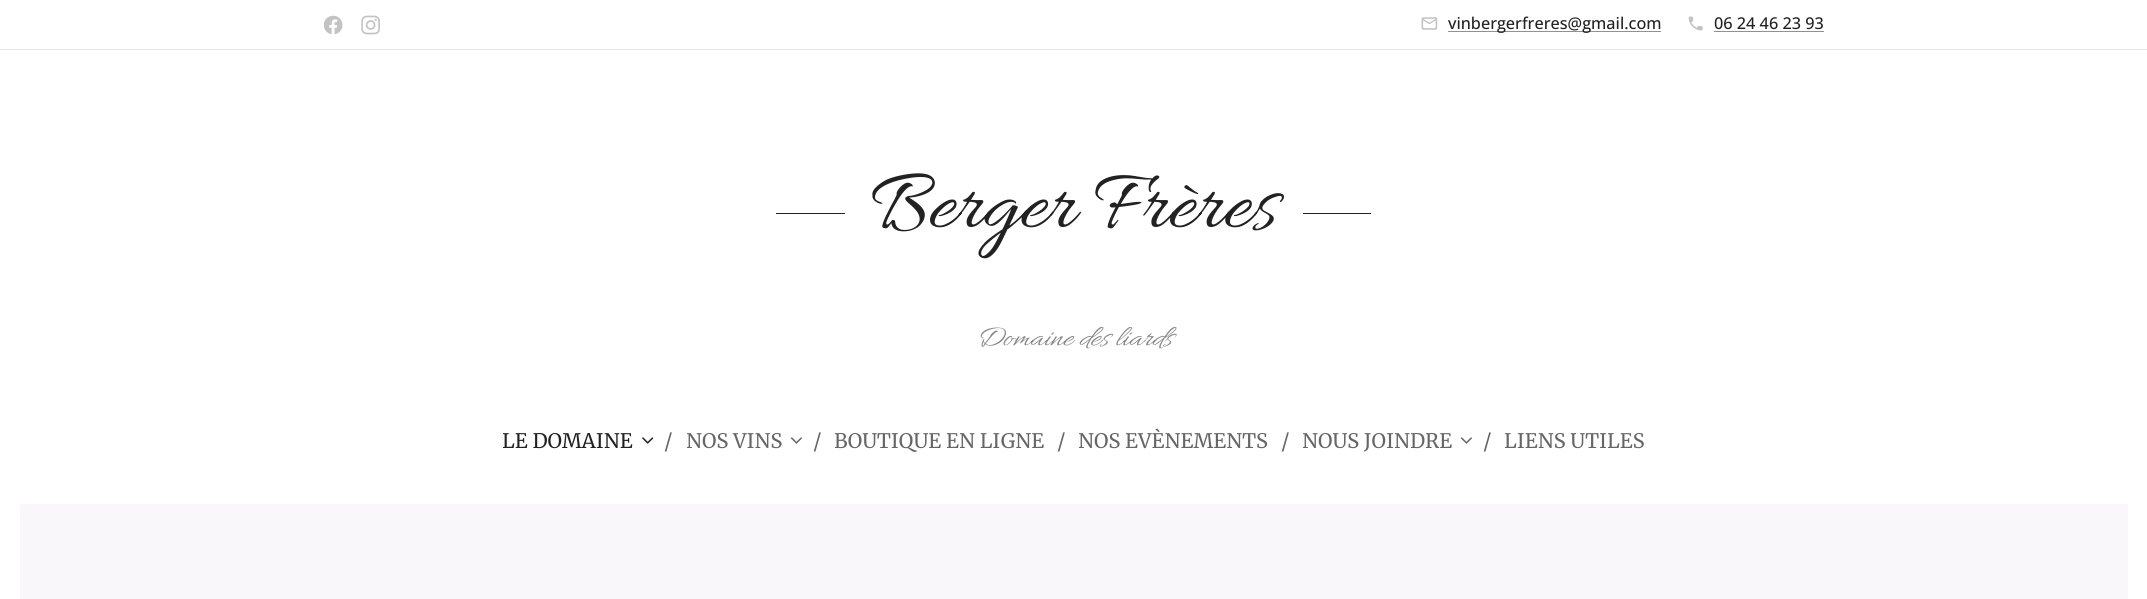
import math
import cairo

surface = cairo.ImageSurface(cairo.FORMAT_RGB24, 2147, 599)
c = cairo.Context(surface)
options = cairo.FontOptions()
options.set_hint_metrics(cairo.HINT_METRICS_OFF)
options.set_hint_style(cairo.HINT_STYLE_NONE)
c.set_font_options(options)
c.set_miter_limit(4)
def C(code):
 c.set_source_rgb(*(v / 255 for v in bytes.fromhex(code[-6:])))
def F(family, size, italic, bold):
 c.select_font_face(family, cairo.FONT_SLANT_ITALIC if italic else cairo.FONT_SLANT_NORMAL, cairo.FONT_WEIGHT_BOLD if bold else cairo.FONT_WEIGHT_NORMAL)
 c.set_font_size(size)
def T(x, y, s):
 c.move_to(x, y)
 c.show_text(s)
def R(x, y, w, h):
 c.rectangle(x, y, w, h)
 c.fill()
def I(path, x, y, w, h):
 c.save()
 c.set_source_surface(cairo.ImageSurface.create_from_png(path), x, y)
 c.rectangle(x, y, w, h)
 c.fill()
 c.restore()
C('ffffff')
c.paint()
I('1.png',324,15,19,20)
I('2.png',361,15,19,20)
I('3.png',1421,17,17,13)
C('919191')
R(1448,31,213,1)
F('Open Sans Medium',16.25,0,0)
C('222222')
T(1448,29,'vinbergerfreres@gmail.com')
I('4.png',1688,16,15,15)
T(1714,29,'06 24 46 23 93')
C('919191')
R(1714,31,110,1)
C('e8e8e8')
R(0,49,2147,1)
C('222222')
R(776,213,69,1)
F('Allura',87.5,0,0)
T(871,226,'Berger Frères')
R(1303,213,68,1)
F('Allura',30,1,0)
C('888888')
T(976,345,'Domaine des liards')
F('Merriweather',20,0,0)
C('222222')
T(502,448,'LE DOMAINE')
C('666666')
T(664,448,'/')
I('5.png',642,437,12,7)
T(686,448,'NOS VINS')
T(813,448,'/')
I('6.png',790,437,12,7)
T(834,448,'BOUTIQUE EN LIGNE')
T(1057,448,'/')
T(1078,448,'NOS EVÈNEMENTS')
T(1281,448,'/')
T(1302,448,'NOUS JOINDRE')
T(1483,448,'/')
I('6.png',1460,437,12,7)
T(1504,448,'LIENS UTILES')
C('f9f7fa')
R(20,504,2108,95)
surface.write_to_png('o.png')
